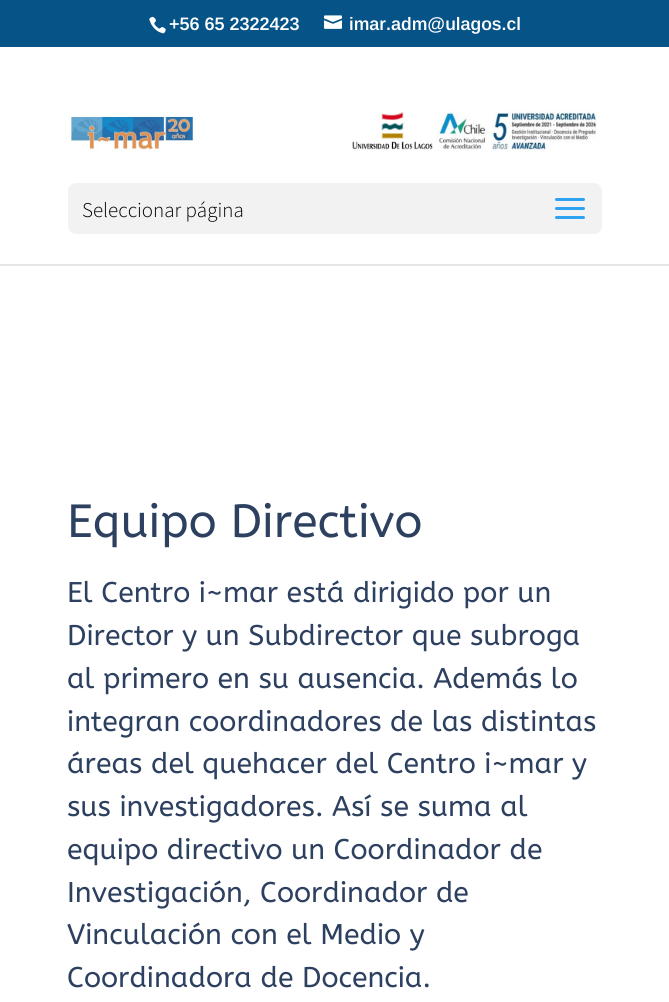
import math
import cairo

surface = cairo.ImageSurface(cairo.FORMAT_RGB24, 669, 1002)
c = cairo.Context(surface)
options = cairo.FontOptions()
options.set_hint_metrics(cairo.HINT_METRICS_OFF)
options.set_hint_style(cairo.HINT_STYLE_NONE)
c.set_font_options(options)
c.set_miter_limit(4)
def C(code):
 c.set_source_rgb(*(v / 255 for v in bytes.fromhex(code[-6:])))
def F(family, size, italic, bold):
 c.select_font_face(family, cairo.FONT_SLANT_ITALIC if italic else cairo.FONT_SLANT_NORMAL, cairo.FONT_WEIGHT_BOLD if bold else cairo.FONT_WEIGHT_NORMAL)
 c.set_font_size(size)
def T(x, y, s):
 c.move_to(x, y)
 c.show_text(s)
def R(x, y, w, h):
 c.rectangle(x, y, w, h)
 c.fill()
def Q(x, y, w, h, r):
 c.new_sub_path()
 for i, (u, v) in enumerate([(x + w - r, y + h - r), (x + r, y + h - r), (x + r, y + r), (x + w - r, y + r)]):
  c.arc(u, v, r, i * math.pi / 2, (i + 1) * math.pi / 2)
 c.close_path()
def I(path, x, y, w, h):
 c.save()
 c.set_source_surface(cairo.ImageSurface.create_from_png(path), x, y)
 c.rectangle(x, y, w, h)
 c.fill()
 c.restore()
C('ffffff')
c.paint()
C('065387')
R(0,0,669,47)
I('1.png',149,16,17,18)
F('Arimo SemiBold',18,0,0)
C('ffffff')
T(169,30,'+56 65 2322423')
I('2.png',324,15,18,14)
T(349,30,'imar.adm@ulagos.cl')
C('e6e6e6')
R(0,264,669,2)
I('3.png',68,111,529,42)
C('f2f2f2')
Q(68,183,534,51,8)
c.fill()
F('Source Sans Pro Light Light',21,0,0)
C('000000')
T(82,217,'Seleccionar página')
I('4.png',555,198,30,21)
F('ABeeZee',46.5,0,0)
C('2d4060')
T(67,537,'Equipo Directivo')
F('ABeeZee',28.5,0,0)
T(67,602,'El Centro i~mar está dirigido por un')
T(67,645,'Director y un Subdirector que subroga')
T(67,688,'al primero en su ausencia. Además lo')
T(67,731,'integran coordinadores de las distintas')
T(67,773,'áreas del quehacer del Centro i~mar y')
T(67,816,'sus investigadores. Así se suma al')
T(67,859,'equipo directivo un Coordinador de')
T(67,902,'Investigación, Coordinador de')
T(67,944,'Vinculación con el Medio y')
T(67,987,'Coordinadora de Docencia.')
surface.write_to_png('o.png')
